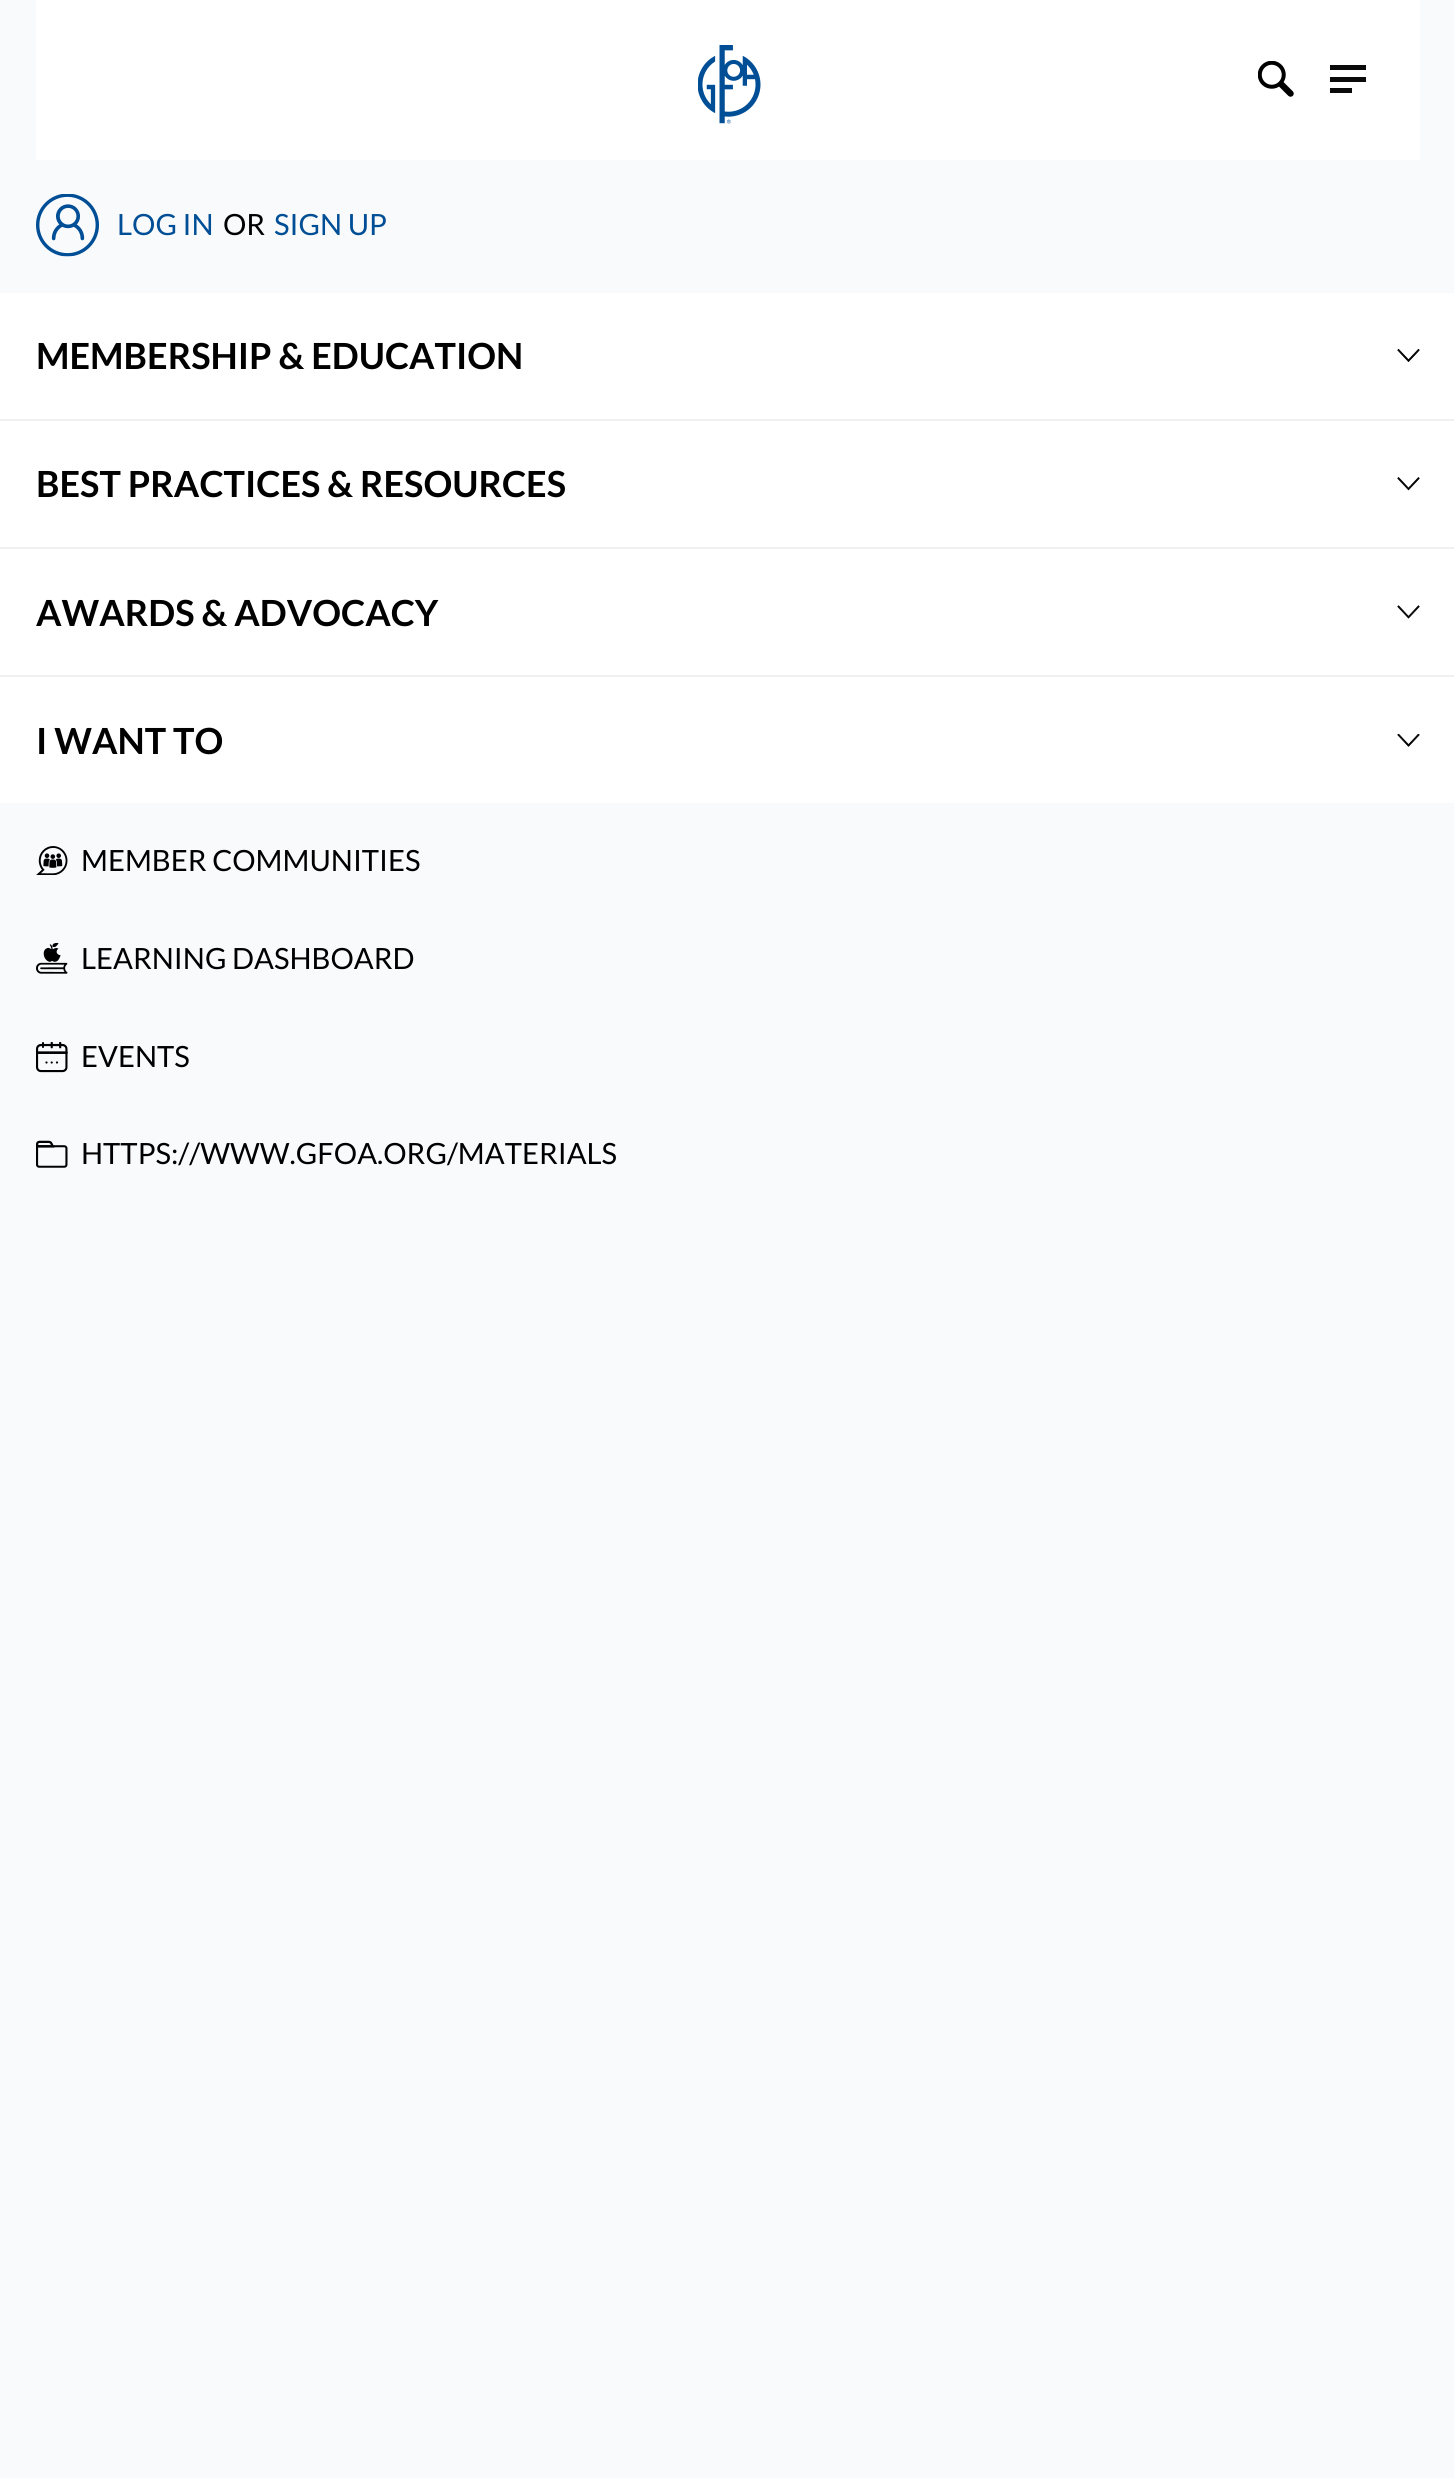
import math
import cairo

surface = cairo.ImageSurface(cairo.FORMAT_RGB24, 1454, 2478)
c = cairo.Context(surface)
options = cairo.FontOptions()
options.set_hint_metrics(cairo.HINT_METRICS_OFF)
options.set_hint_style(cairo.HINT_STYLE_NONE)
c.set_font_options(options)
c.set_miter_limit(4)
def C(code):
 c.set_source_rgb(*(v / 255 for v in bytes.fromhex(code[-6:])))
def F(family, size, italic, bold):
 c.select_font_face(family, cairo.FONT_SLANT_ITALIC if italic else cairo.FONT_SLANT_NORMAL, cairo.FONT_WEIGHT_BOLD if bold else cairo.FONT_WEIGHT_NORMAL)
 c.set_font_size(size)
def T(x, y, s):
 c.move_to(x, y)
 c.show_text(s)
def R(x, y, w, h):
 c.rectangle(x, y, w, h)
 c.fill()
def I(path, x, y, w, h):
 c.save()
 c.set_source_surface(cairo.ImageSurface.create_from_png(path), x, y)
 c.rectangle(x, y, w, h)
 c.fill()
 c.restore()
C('f9fafc')
c.paint()
C('ffffff')
R(36,0,1384,160)
I('1.png',698,45,63,79)
I('2.png',1258,61,36,36)
C('0a0a0a')
R(1330,65,36,5)
R(1330,77,36,5)
R(1330,88,22,5)
I('3.png',36,194,63,63)
F('Lato',29.25,0,0)
C('004e95')
T(117,235,'LOG IN')
C('000000')
T(223,235,'OR')
C('004e95')
T(274,235,'SIGN UP')
C('ffffff')
R(0,293,1454,126)
F('Lato',36,0,1)
C('000000')
T(36,369,'MEMBERSHIP & EDUCATION')
I('4.png',1397,349,23,13)
C('ffffff')
R(0,421,1454,126)
C('f1f0f0')
R(0,419,1454,2)
C('000000')
T(36,497,'BEST PRACTICES & RESOURCES')
I('5.png',1397,477,23,14)
C('ffffff')
R(0,549,1454,126)
C('f1f0f0')
R(0,547,1454,2)
C('000000')
T(36,626,'AWARDS & ADVOCACY')
I('6.png',1397,605,23,14)
C('ffffff')
R(0,677,1454,126)
C('f1f0f0')
R(0,675,1454,2)
C('000000')
T(36,754,'I WANT TO')
I('7.png',1397,734,23,13)
I('8.png',36,846,32,29)
F('Lato',29.25,0,0)
T(81,871,'MEMBER COMMUNITIES')
I('9.png',36,943,32,31)
T(81,969,'LEARNING DASHBOARD')
I('10.png',36,1042,32,31)
T(81,1067,'EVENTS')
I('11.png',36,1140,32,28)
T(81,1164,'HTTPS://WWW.GFOA.ORG/MATERIALS')
surface.write_to_png('o.png')
